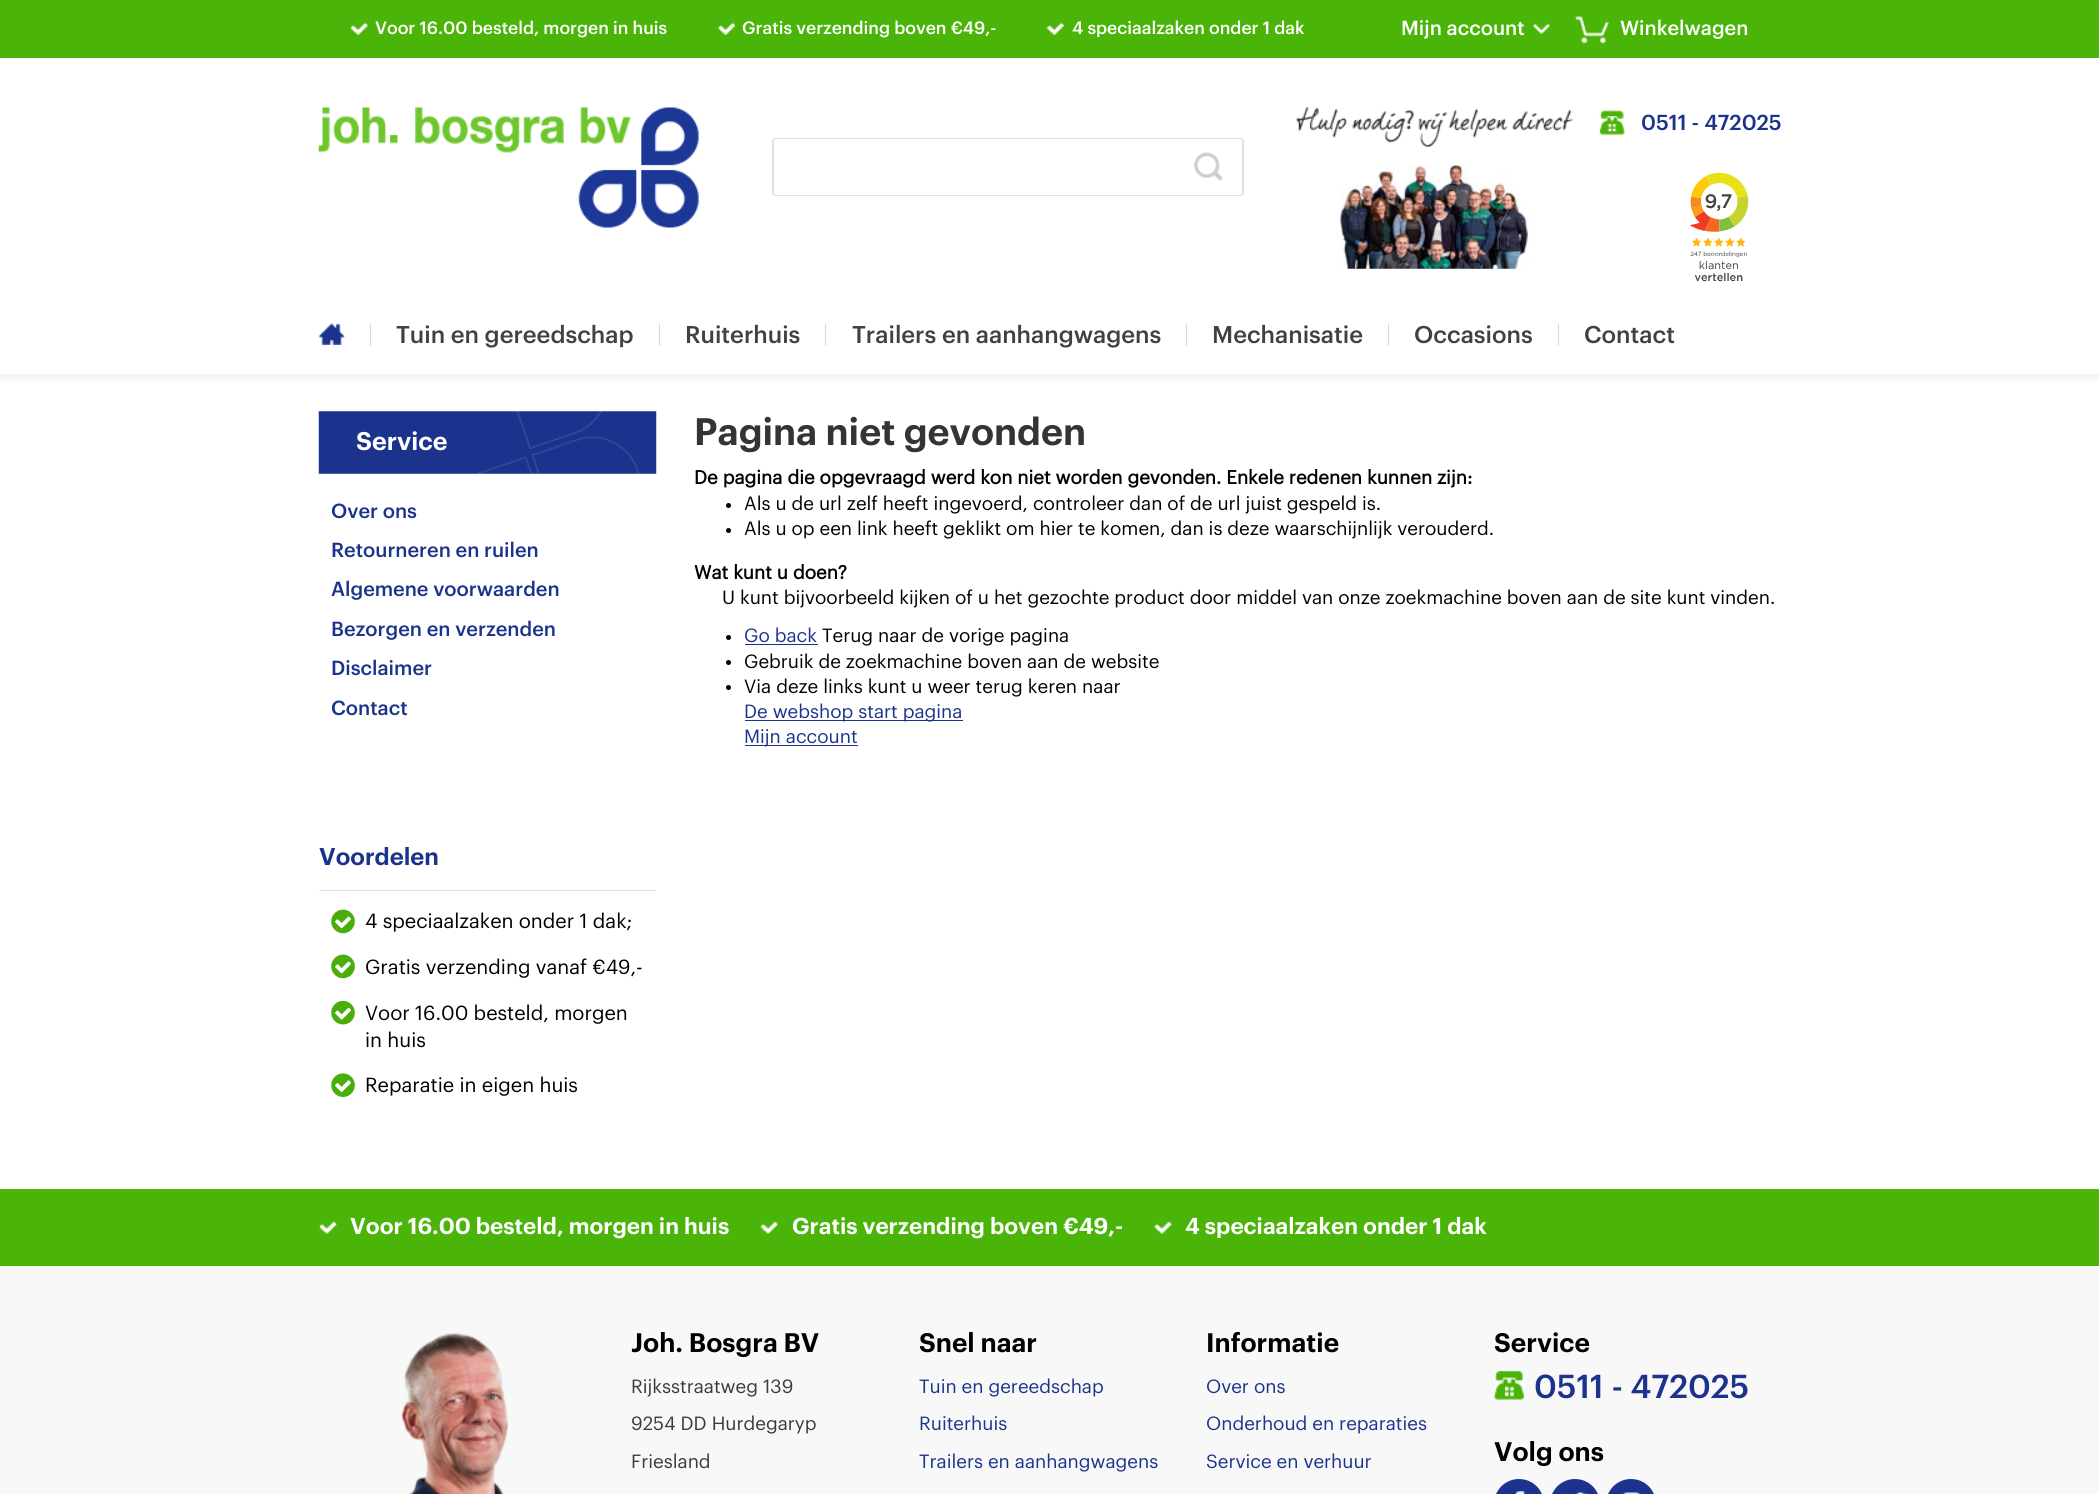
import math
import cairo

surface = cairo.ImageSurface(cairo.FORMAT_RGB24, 2099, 1494)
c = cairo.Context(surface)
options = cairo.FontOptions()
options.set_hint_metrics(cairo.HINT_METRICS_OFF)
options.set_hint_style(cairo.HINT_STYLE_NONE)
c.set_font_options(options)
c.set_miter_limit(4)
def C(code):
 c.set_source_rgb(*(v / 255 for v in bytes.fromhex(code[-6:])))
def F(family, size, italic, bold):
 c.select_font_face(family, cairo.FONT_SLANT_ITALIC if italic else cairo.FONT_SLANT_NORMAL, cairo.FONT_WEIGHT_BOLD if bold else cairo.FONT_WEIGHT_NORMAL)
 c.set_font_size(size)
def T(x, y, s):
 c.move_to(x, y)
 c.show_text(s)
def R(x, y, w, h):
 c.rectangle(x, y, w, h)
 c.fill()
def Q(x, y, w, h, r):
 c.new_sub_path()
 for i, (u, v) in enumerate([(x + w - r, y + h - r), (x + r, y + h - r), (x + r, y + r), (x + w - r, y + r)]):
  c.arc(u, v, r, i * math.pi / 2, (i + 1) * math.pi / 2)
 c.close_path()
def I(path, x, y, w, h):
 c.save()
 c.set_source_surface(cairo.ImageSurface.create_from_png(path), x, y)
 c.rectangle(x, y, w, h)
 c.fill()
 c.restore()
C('ffffff')
c.paint()
I('1.png',0,374,2099,7)
C('4ab408')
R(0,0,2099,58)
I('2.png',350,22,18,13)
F('Graphik Medium',17.5,0,0)
C('ffffff')
T(375,34,'Voor 16.00 besteld, morgen in huis')
I('3.png',717,22,18,13)
T(742,34,'Gratis verzending boven €49,-')
I('4.png',1046,22,18,13)
T(1072,34,'4 speciaalzaken onder 1 dak')
I('5.png',1532,23,18,11)
F('Graphik Medium',20,0,0)
T(1401,35,'Mijn account')
I('6.png',1575,16,34,28)
T(1620,35,'Winkelwagen')
I('7.png',318,107,381,121)
I('8.png',1296,107,329,41)
F('Graphik Medium',21.25,0,0)
C('1b338c')
T(1641,130,'0511 - 472025')
I('9.png',1339,165,190,104)
I('10.png',1690,172,59,110)
C('e1e1e1')
c.set_fill_rule(cairo.FILL_RULE_EVEN_ODD)
c.new_path()
c.move_to(776,138)
c.line_to(1174,138)
c.line_to(1174,196)
c.line_to(776,196)
c.curve_to(774,196,772,195,772,192)
c.line_to(772,141)
c.curve_to(772,139,774,138,776,138)
c.close_path()
c.move_to(776,139)
c.line_to(1174,139)
c.line_to(1174,195)
c.line_to(776,195)
c.curve_to(775,195,774,194,774,192)
c.line_to(774,141)
c.curve_to(774,140,775,139,776,139)
c.close_path()
c.fill()
I('11.png',1193,152,30,29)
c.new_path()
c.move_to(1174,138)
c.line_to(1240,138)
c.curve_to(1242,138,1244,139,1244,141)
c.line_to(1244,192)
c.curve_to(1244,195,1242,196,1240,196)
c.line_to(1174,196)
c.close_path()
c.move_to(1174,139)
c.line_to(1240,139)
c.curve_to(1241,139,1242,140,1242,141)
c.line_to(1242,192)
c.curve_to(1242,194,1241,195,1240,195)
c.line_to(1174,195)
c.close_path()
c.fill()
C('d7d7d7')
R(370,324,1,22)
I('12.png',318,323,27,22)
R(659,324,1,22)
F('Graphik Medium',23.75,0,0)
C('414141')
T(396,343,'Tuin en gereedschap')
C('d7d7d7')
R(825,324,1,22)
C('414141')
T(685,343,'Ruiterhuis')
C('d7d7d7')
R(1186,324,1,22)
C('414141')
T(852,343,'Trailers en aanhangwagens')
C('d7d7d7')
R(1388,324,1,22)
C('414141')
T(1212,343,'Mechanisatie')
C('d7d7d7')
R(1558,324,1,22)
C('414141')
T(1414,343,'Occasions')
T(1584,343,'Contact')
I('13.png',318,411,339,63)
F('Graphik SemiBold',25,0,0)
C('ffffff')
T(356,450,'Service')
F('Graphik Medium',20,0,0)
C('1b338c')
T(331,518,'Over ons')
T(331,557,'Retourneren en ruilen')
T(331,596,'Algemene voorwaarden')
T(331,636,'Bezorgen en verzenden')
T(331,675,'Disclaimer')
T(331,715,'Contact')
C('dfdfdf')
R(319,890,337,1)
F('Graphik SemiBold',23.75,0,0)
C('1b338c')
T(319,865,'Voordelen')
I('14.png',331,909,24,25)
F('Graphik',20,0,0)
C('000000')
T(365,928,'4 speciaalzaken onder 1 dak;')
I('14.png',331,954,24,25)
T(365,974,'Gratis verzending vanaf €49,-')
I('15.png',331,1000,24,25)
T(365,1020,'Voor 16.00 besteld, morgen')
T(365,1047,'in huis')
I('16.png',331,1073,24,24)
T(365,1092,'Reparatie in eigen huis')
F('Graphik SemiBold',37.5,0,0)
C('343434')
T(694,445,'Pagina niet gevonden')
F('Graphik',18.75,0,1)
C('000000')
T(694,484,'De pagina die opgevraagd werd kon niet worden gevonden. Enkele redenen kunnen zijn:')
c.new_path()
c.arc(728.5,505.5,2.5,0,2 * math.pi)
c.fill()
F('Graphik',18.75,0,0)
T(744,510,'Als u de url zelf heeft ingevoerd, controleer dan of de url juist gespeld is.')
c.new_path()
c.arc(728.5,530.5,2.5,0,2 * math.pi)
c.fill()
T(744,535,'Als u op een link heeft geklikt om hier te komen, dan is deze waarschijnlijk verouderd.')
F('Graphik',18.75,0,1)
T(694,579,'Wat kunt u doen?')
F('Graphik',18.75,0,0)
T(722,604,'U kunt bijvoorbeeld kijken of u het gezochte product door middel van onze zoekmachine boven aan de site kunt vinden.')
c.new_path()
c.arc(728.5,637.5,2.5,0,2 * math.pi)
c.fill()
C('1b338c')
T(744,642,'Go back')
R(745,644,73,1)
C('000000')
T(822,642,'Terug naar de vorige pagina')
c.new_path()
c.arc(728.5,662.5,2.5,0,2 * math.pi)
c.fill()
T(744,668,'Gebruik de zoekmachine boven aan de website')
c.new_path()
c.arc(728.5,687.5,2.5,0,2 * math.pi)
c.fill()
T(744,693,'Via deze links kunt u weer terug keren naar')
C('1b338c')
R(745,720,218,1)
T(744,718,'De webshop start pagina')
R(745,745,113,1)
T(744,743,'Mijn account')
C('4ab408')
R(0,1189,2099,77)
I('17.png',318,1221,19,13)
F('Graphik SemiBold',22.5,0,0)
C('ffffff')
T(350,1234,'Voor 16.00 besteld, morgen in huis')
I('18.png',760,1221,18,13)
T(792,1234,'Gratis verzending boven €49,-')
I('19.png',1153,1221,19,13)
T(1185,1234,'4 speciaalzaken onder 1 dak')
C('f8f8f8')
R(0,1266,2099,228)
I('20.png',401,1333,108,161)
F('Graphik SemiBold',26.25,0,0)
C('000000')
T(631,1352,'Joh. Bosgra BV')
F('Graphik',18.75,0,0)
C('3a3a3a')
T(631,1393,'Rijksstraatweg 139')
T(631,1430,'9254 DD Hurdegaryp')
T(631,1468,'Friesland')
F('Graphik SemiBold',26.25,0,0)
C('000000')
T(919,1352,'Snel naar')
F('Graphik',18.75,0,0)
C('1b338c')
T(919,1393,'Tuin en gereedschap')
T(919,1430,'Ruiterhuis')
T(919,1468,'Trailers en aanhangwagens')
F('Graphik SemiBold',26.25,0,0)
C('000000')
T(1206,1352,'Informatie')
F('Graphik',18.75,0,0)
C('1b338c')
T(1206,1393,'Over ons')
T(1206,1430,'Onderhoud en reparaties')
T(1206,1468,'Service en verhuur')
F('Graphik SemiBold',26.25,0,0)
C('000000')
T(1494,1352,'Service')
I('21.png',1493,1371,32,29)
F('Graphik Medium',32.5,0,0)
C('1b338c')
T(1534,1398,'0511 - 472025')
F('Graphik SemiBold',26.25,0,0)
C('000000')
T(1494,1461,'Volg ons')
C('1b338c')
Q(1494,1479,50,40,25)
c.fill()
I('22.png',1515,1491,10,3)
Q(1550,1479,50,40,25)
c.fill()
I('23.png',1564,1492,24,2)
Q(1606,1479,50,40,25)
c.fill()
I('24.png',1622,1492,19,2)
surface.write_to_png('o.png')
